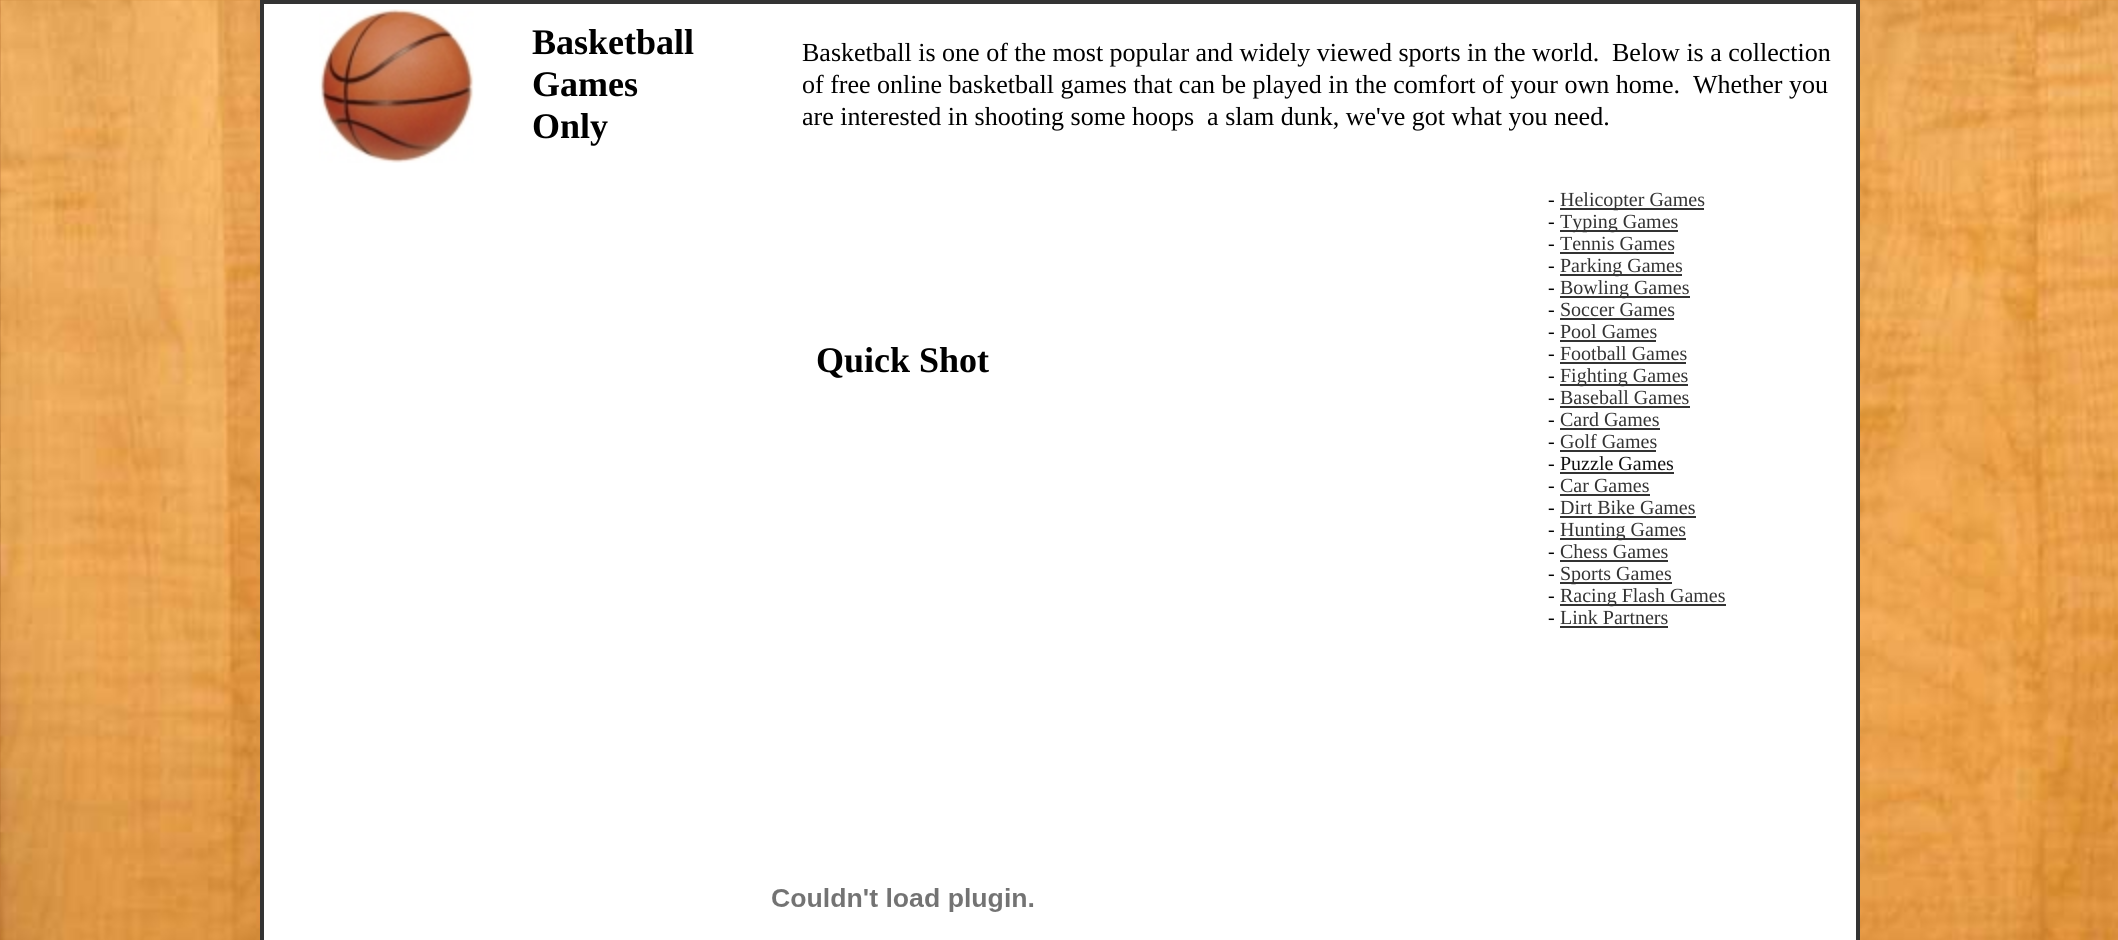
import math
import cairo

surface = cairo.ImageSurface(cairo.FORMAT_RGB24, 2118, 940)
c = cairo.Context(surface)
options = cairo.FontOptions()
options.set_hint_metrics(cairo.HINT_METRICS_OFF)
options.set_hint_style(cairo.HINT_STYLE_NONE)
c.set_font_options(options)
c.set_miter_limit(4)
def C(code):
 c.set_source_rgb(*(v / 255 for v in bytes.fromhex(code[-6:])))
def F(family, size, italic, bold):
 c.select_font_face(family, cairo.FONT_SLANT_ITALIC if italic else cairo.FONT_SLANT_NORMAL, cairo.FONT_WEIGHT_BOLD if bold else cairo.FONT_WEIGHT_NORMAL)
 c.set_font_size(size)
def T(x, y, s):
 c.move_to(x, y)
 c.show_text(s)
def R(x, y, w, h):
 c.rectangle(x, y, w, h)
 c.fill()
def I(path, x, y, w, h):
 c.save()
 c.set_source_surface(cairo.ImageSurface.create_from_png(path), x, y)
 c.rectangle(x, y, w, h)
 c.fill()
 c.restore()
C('ffffff')
c.paint()
I('1.png',0,0,2118,940)
C('ffffff')
R(264,4,1592,936)
C('333333')
R(260,0,1600,4)
R(1856,0,4,940)
R(260,0,4,940)
I('2.png',319,9,155,154)
F('Liberation Serif',36,0,1)
C('000000')
T(532,54,'Basketball')
T(532,96,'Games')
T(532,138,'Only')
F('Liberation Serif',26,0,0)
T(802,61,'Basketball is one of the most popular and widely viewed sports in the world.')
T(1612,61,'Below is a collection')
T(802,93,'of free online basketball games that can be played in the comfort of your own home.  Whether you')
T(802,125,'are interested in shooting some hoops  a slam dunk, we\'ve got what you need.')
F('Liberation Serif',36,0,1)
T(816,372,'Quick Shot')
I('3.png',772,888,262,24)
F('Liberation Serif',20,0,0)
T(1548,206,'-')
C('333333')
R(1560,208,144,2)
T(1560,206,'Helicopter Games')
C('000000')
T(1548,228,'-')
C('333333')
R(1560,230,118,2)
T(1560,228,'Typing Games')
C('000000')
T(1548,250,'-')
C('333333')
T(1560,250,'Tennis Games')
R(1560,252,114,2)
C('000000')
T(1548,272,'-')
C('333333')
R(1560,274,122,2)
T(1560,272,'Parking Games')
C('000000')
T(1548,294,'-')
C('333333')
R(1560,296,130,2)
T(1560,294,'Bowling Games')
C('000000')
T(1548,316,'-')
C('333333')
T(1560,316,'Soccer Games')
R(1560,318,114,2)
C('000000')
T(1548,338,'-')
C('333333')
T(1560,338,'Pool Games')
R(1560,340,96,2)
C('000000')
T(1548,360,'-')
C('333333')
T(1560,360,'Football Games')
R(1560,362,126,2)
C('000000')
T(1548,382,'-')
C('333333')
R(1560,384,128,2)
T(1560,382,'Fighting Games')
C('000000')
T(1548,404,'-')
C('333333')
T(1560,404,'Baseball Games')
R(1560,406,130,2)
C('000000')
T(1548,426,'-')
C('333333')
T(1560,426,'Card Games')
R(1560,428,100,2)
C('000000')
T(1548,448,'-')
C('333333')
T(1560,448,'Golf Games')
R(1560,450,96,2)
C('000000')
T(1548,470,'-')
C('111111')
T(1560,470,'Puzzle Games')
C('333333')
R(1560,472,114,2)
C('000000')
T(1548,492,'-')
C('333333')
T(1560,492,'Car Games')
R(1560,494,90,2)
C('000000')
T(1548,514,'-')
C('333333')
T(1560,514,'Dirt Bike Games')
R(1560,516,136,2)
C('000000')
T(1548,536,'-')
C('333333')
R(1560,538,126,2)
T(1560,536,'Hunting Games')
C('000000')
T(1548,558,'-')
C('333333')
T(1560,558,'Chess Games')
R(1560,560,108,2)
C('000000')
T(1548,580,'-')
C('333333')
R(1560,582,112,2)
T(1560,580,'Sports Games')
C('000000')
T(1548,602,'-')
C('333333')
R(1560,604,166,2)
T(1560,602,'Racing Flash Games')
C('000000')
T(1548,624,'-')
C('333333')
T(1560,624,'Link Partners')
R(1560,626,108,2)
surface.write_to_png('o.png')
